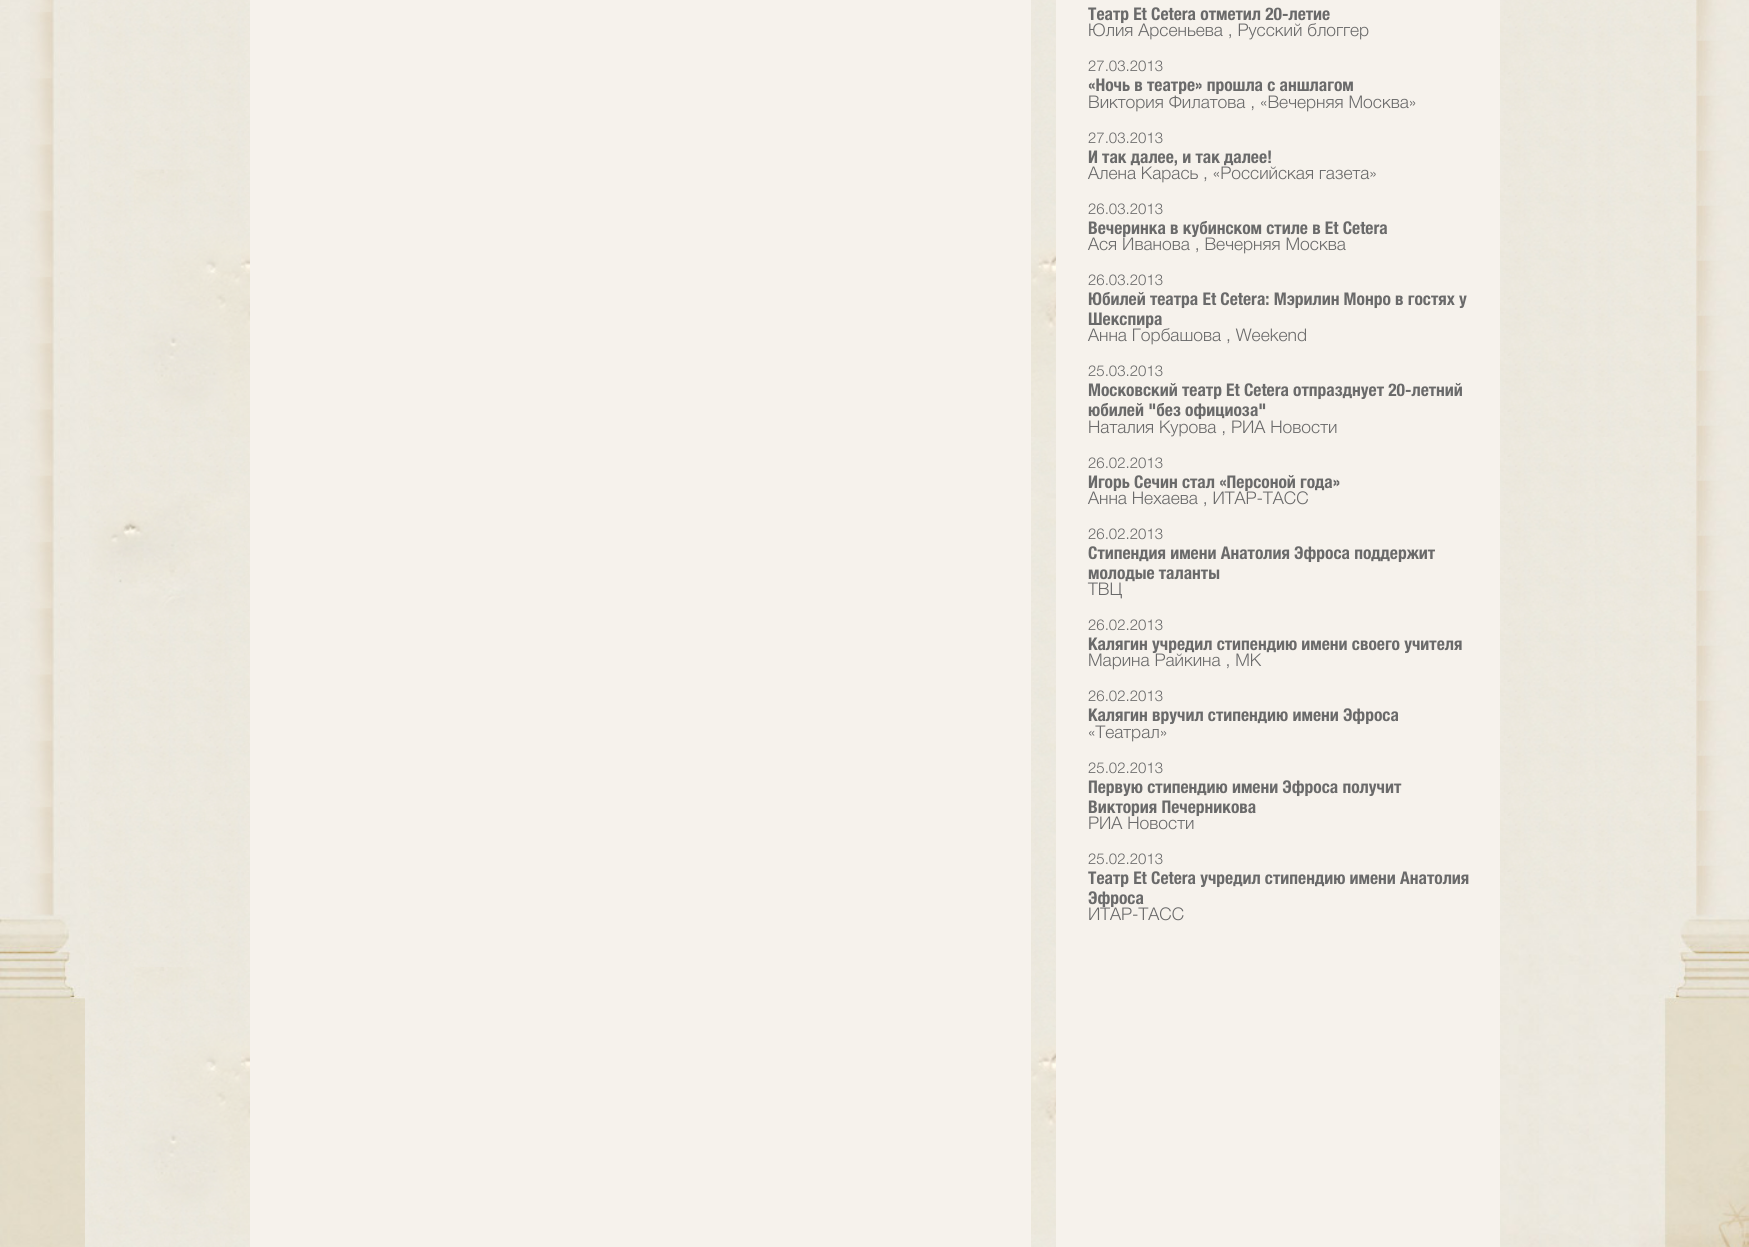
import math
import cairo

surface = cairo.ImageSurface(cairo.FORMAT_RGB24, 1749, 1247)
c = cairo.Context(surface)
options = cairo.FontOptions()
options.set_hint_metrics(cairo.HINT_METRICS_OFF)
options.set_hint_style(cairo.HINT_STYLE_NONE)
c.set_font_options(options)
c.set_miter_limit(4)
def C(code):
 c.set_source_rgb(*(v / 255 for v in bytes.fromhex(code[-6:])))
def F(family, size, italic, bold):
 c.select_font_face(family, cairo.FONT_SLANT_ITALIC if italic else cairo.FONT_SLANT_NORMAL, cairo.FONT_WEIGHT_BOLD if bold else cairo.FONT_WEIGHT_NORMAL)
 c.set_font_size(size)
def T(x, y, s):
 c.move_to(x, y)
 c.show_text(s)
def R(x, y, w, h):
 c.rectangle(x, y, w, h)
 c.fill()
def I(path, x, y, w, h):
 c.save()
 c.set_source_surface(cairo.ImageSurface.create_from_png(path), x, y)
 c.rectangle(x, y, w, h)
 c.fill()
 c.restore()
C('ffffff')
c.paint()
I('1.png',88,0,1609,1247)
I('2.png',0,0,89,1247)
I('3.png',0,914,85,333)
I('4.png',1696,0,53,915)
I('5.png',1500,914,249,333)
C('f6f2ec')
R(250,0,781,1247)
R(1056,0,444,1247)
F('Helvetica Neue',17.5,0,1)
C('6a6a6a')
T(1088,20,'Театр Et Cetera отметил 20-летие')
F('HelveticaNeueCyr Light',17.5,0,0)
T(1088,36,'Юлия Арсеньева , Русский блоггер')
F('HelveticaNeueCyr Light',15,0,0)
T(1088,71,'27.03.2013')
F('Helvetica Neue',17.5,0,1)
T(1088,91,'«Ночь в театре» прошла с аншлагом')
F('HelveticaNeueCyr Light',17.5,0,0)
T(1088,108,'Виктория Филатова , «Вечерняя Москва»')
F('HelveticaNeueCyr Light',15,0,0)
T(1088,143,'27.03.2013')
F('Helvetica Neue',17.5,0,1)
T(1088,163,'И так далее, и так далее!')
F('HelveticaNeueCyr Light',17.5,0,0)
T(1088,179,'Алена Карась , «Российская газета»')
F('HelveticaNeueCyr Light',15,0,0)
T(1088,214,'26.03.2013')
F('Helvetica Neue',17.5,0,1)
T(1088,234,'Вечеринка в кубинском стиле в Et Cetera')
F('HelveticaNeueCyr Light',17.5,0,0)
T(1088,250,'Ася Иванова , Вечерняя Москва')
F('HelveticaNeueCyr Light',15,0,0)
T(1088,285,'26.03.2013')
F('Helvetica Neue',17.5,0,1)
T(1088,305,'Юбилей театра Et Сеtera: Мэрилин Монро в гостях у')
T(1088,325,'Шекспира')
F('HelveticaNeueCyr Light',17.5,0,0)
T(1088,341,'Анна Горбашова , Weekend')
F('HelveticaNeueCyr Light',15,0,0)
T(1088,376,'25.03.2013')
F('Helvetica Neue',17.5,0,1)
T(1088,396,'Московский театр Et Cetera отпразднует 20-летний')
T(1088,416,'юбилей "без официоза"')
F('HelveticaNeueCyr Light',17.5,0,0)
T(1088,433,'Наталия Курова , РИА Новости')
F('HelveticaNeueCyr Light',15,0,0)
T(1088,468,'26.02.2013')
F('Helvetica Neue',17.5,0,1)
T(1088,488,'Игорь Сечин стал «Персоной года»')
F('HelveticaNeueCyr Light',17.5,0,0)
T(1088,504,'Анна Нехаева , ИТАР-ТАСС')
F('HelveticaNeueCyr Light',15,0,0)
T(1088,539,'26.02.2013')
F('Helvetica Neue',17.5,0,1)
T(1088,559,'Стипендия имени Анатолия Эфроса поддержит')
T(1088,579,'молодые таланты')
F('HelveticaNeueCyr Light',17.5,0,0)
T(1088,595,'ТВЦ')
F('HelveticaNeueCyr Light',15,0,0)
T(1088,630,'26.02.2013')
F('Helvetica Neue',17.5,0,1)
T(1088,650,'Калягин учредил стипендию имени своего учителя')
F('HelveticaNeueCyr Light',17.5,0,0)
T(1088,666,'Марина Райкина , МК')
F('HelveticaNeueCyr Light',15,0,0)
T(1088,701,'26.02.2013')
F('Helvetica Neue',17.5,0,1)
T(1088,721,'Калягин вручил стипендию имени Эфроса')
F('HelveticaNeueCyr Light',17.5,0,0)
T(1088,738,'«Театрал»')
F('HelveticaNeueCyr Light',15,0,0)
T(1088,773,'25.02.2013')
F('Helvetica Neue',17.5,0,1)
T(1088,793,'Первую стипендию имени Эфроса получит')
T(1088,813,'Виктория Печерникова')
F('HelveticaNeueCyr Light',17.5,0,0)
T(1088,829,'РИА Новости')
F('HelveticaNeueCyr Light',15,0,0)
T(1088,864,'25.02.2013')
F('Helvetica Neue',17.5,0,1)
T(1088,884,'Театр Et Cetera учредил стипендию имени Анатолия')
T(1088,904,'Эфроса')
F('HelveticaNeueCyr Light',17.5,0,0)
T(1088,920,'ИТАР-ТАСС')
surface.write_to_png('o.png')
